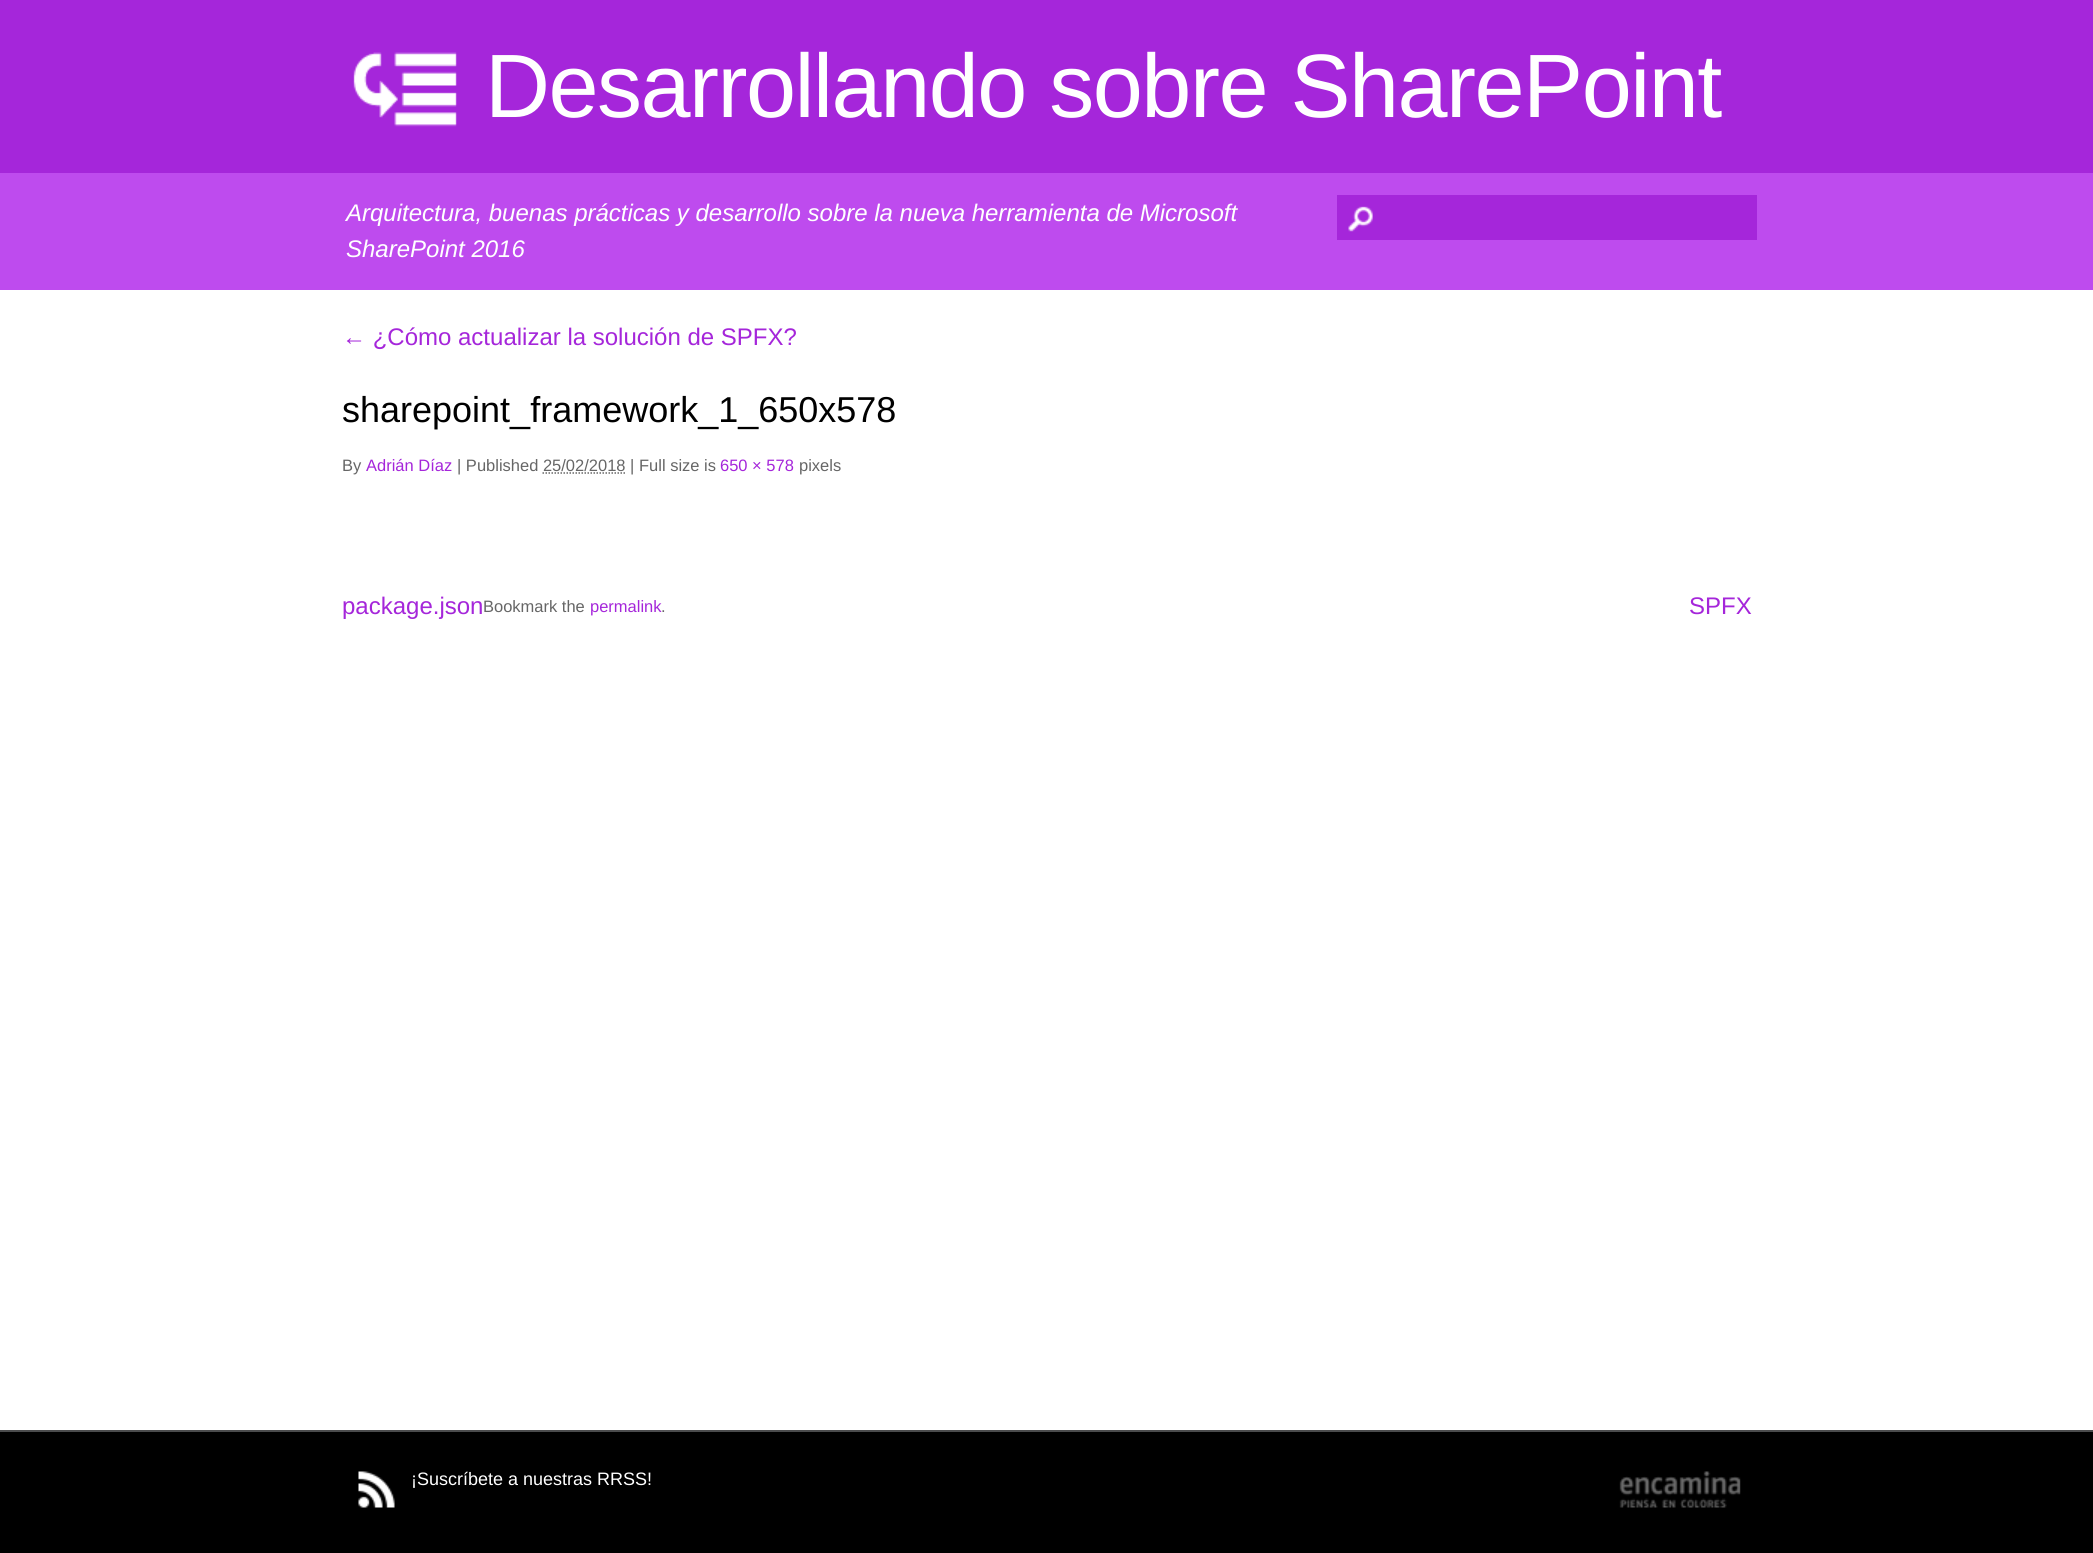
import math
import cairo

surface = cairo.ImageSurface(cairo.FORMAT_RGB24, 2093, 1553)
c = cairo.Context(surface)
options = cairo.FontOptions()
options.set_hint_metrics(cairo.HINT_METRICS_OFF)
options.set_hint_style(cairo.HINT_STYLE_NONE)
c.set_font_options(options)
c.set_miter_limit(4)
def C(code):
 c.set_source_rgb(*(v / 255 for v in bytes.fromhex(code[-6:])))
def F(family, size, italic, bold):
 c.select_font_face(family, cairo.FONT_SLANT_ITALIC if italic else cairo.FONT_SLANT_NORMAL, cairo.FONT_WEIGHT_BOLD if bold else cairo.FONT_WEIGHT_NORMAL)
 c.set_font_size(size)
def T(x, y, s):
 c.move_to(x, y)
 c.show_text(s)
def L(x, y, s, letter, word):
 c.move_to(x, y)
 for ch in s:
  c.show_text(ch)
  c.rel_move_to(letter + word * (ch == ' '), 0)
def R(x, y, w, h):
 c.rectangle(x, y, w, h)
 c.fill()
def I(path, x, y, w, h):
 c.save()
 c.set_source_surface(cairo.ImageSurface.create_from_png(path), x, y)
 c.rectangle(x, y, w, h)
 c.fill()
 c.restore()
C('ffffff')
c.paint()
C('a526da')
R(0,0,2093,173)
I('1.png',353,52,104,75)
F('Liberation Sans',90,0,0)
C('ffffff')
L(485,117,'Desarrollando sobre SharePoint',-1.5,0)
C('be4bee')
R(0,173,2093,117)
F('Liberation Sans',24,1,0)
C('ffffff')
T(346,221,'Arquitectura, buenas prácticas y desarrollo sobre la nueva herramienta de Microsoft')
T(346,257,'SharePoint 2016')
C('a526da')
R(1337,195,420,45)
I('2.png',1348,206,25,26)
F('Liberation Sans',24,0,0)
T(342,345,'← ¿Cómo actualizar la solución de SPFX?')
F('Liberation Sans',36,0,0)
C('000000')
T(342,422,'sharepoint_framework_1_650x578')
F('Liberation Sans',16.5,0,0)
C('666666')
T(342,471,'By')
C('a526da')
T(366,471,'Adrián Díaz')
C('666666')
T(457,471,'| Published 25/02/2018 | Full size is')
C('a526da')
T(720,471,'650 × 578')
C('666666')
T(799,471,'pixels')
c.new_path()
c.move_to(542.5,473)
c.line_to(625,473)
c.set_line_width(1.5)
c.set_dash([1.5,1.5])
c.stroke()
F('Liberation Sans',24,0,0)
C('a526da')
T(342,614,'package.json')
T(1689,614,'SPFX')
F('Liberation Sans',16.5,0,0)
C('666666')
T(483,612,'Bookmark the')
C('a526da')
T(590,612,'permalink')
C('666666')
T(661,612,'.')
C('000000')
R(0,1432,2093,121)
C('4b4c4d')
R(0,1430,2093,2)
I('3.png',358,1471,37,37)
F('Liberation Sans',18,0,0)
C('ffffff')
T(411,1485,'¡Suscríbete a nuestras RRSS!')
I('4.png',1619,1471,122,37)
surface.write_to_png('o.png')
